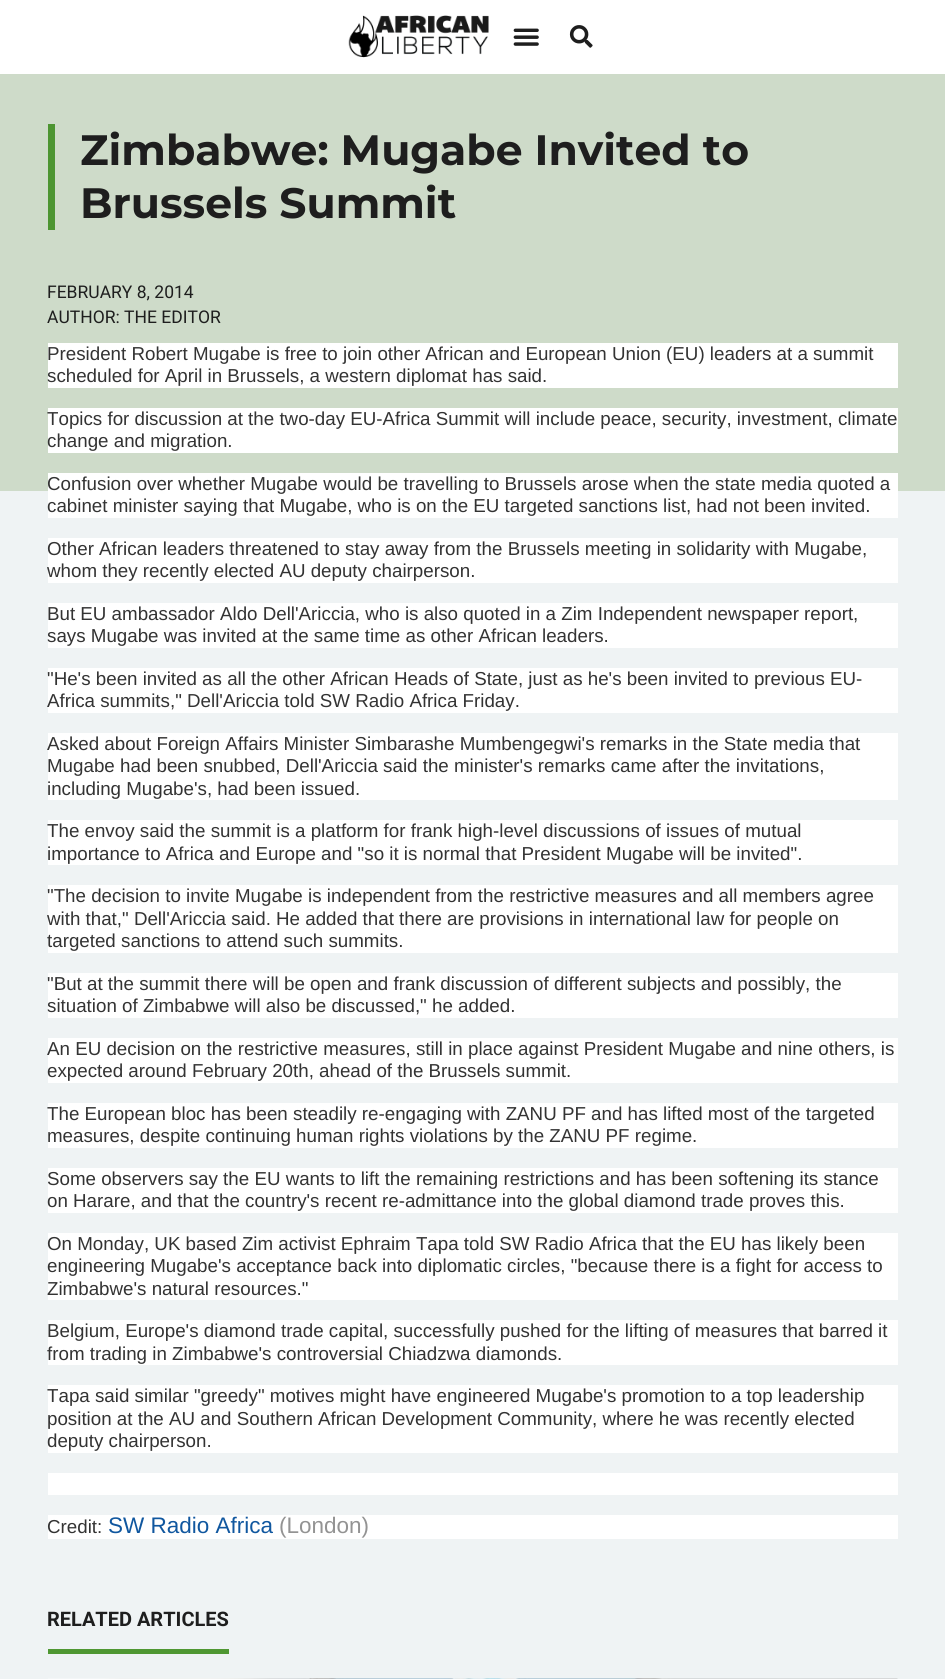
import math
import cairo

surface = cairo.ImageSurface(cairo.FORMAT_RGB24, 945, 1679)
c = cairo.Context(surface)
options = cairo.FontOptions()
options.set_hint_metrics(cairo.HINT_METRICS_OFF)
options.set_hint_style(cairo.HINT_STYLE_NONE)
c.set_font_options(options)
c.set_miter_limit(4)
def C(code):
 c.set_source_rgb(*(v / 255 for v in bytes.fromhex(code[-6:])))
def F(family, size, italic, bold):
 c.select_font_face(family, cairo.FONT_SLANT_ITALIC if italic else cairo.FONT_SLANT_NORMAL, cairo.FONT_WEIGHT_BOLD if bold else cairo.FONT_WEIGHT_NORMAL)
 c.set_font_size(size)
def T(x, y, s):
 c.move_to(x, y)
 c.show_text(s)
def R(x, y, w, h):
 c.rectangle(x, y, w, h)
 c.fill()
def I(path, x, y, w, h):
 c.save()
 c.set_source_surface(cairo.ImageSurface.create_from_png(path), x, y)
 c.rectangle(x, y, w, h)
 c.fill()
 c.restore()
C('ffffff')
c.paint()
I('1.png',348,15,141,43)
I('2.png',513,28,26,18)
I('3.png',569,25,24,23)
C('cedbc9')
R(0,74,945,417)
C('eff3f4')
R(0,491,945,1188)
C('4d9531')
R(48,124,7,106)
F('Montserrat',42.5,0,1)
C('1e1e1e')
T(80,165,'Zimbabwe: Mugabe Invited to')
T(80,218,'Brussels Summit')
F('Roboto',17.5,0,0)
T(47,298,'FEBRUARY 8, 2014')
T(47,323,'AUTHOR: THE EDITOR')
C('ffffff')
R(48,343,850,45)
F('Liberation Sans',18.75,0,0)
C('333333')
T(47,360,'President Robert Mugabe is free to join other African and European Union (EU) leaders at a summit')
T(47,382,'scheduled for April in Brussels, a western diplomat has said.')
C('ffffff')
R(48,408,850,45)
C('333333')
T(47,425,'Topics for discussion at the two-day EU-Africa Summit will include peace, security, investment, climate')
T(47,447,'change and migration.')
C('ffffff')
R(48,473,850,45)
C('333333')
T(47,490,'Confusion over whether Mugabe would be travelling to Brussels arose when the state media quoted a')
T(47,512,'cabinet minister saying that Mugabe, who is on the EU targeted sanctions list, had not been invited.')
C('ffffff')
R(48,538,850,45)
C('333333')
T(47,555,'Other African leaders threatened to stay away from the Brussels meeting in solidarity with Mugabe,')
T(47,577,'whom they recently elected AU deputy chairperson.')
C('ffffff')
R(48,603,850,45)
C('333333')
T(47,620,'But EU ambassador Aldo Dell\'Ariccia, who is also quoted in a Zim Independent newspaper report,')
T(47,642,'says Mugabe was invited at the same time as other African leaders.')
C('ffffff')
R(48,668,850,45)
C('333333')
T(47,685,'"He\'s been invited as all the other African Heads of State, just as he\'s been invited to previous EU-')
T(47,707,'Africa summits," Dell\'Ariccia told SW Radio Africa Friday.')
C('ffffff')
R(48,733,850,67)
C('333333')
T(47,750,'Asked about Foreign Affairs Minister Simbarashe Mumbengegwi\'s remarks in the State media that')
T(47,772,'Mugabe had been snubbed, Dell\'Ariccia said the minister\'s remarks came after the invitations,')
T(47,795,'including Mugabe\'s, had been issued.')
C('ffffff')
R(48,820,850,45)
C('333333')
T(47,837,'The envoy said the summit is a platform for frank high-level discussions of issues of mutual')
T(47,860,'importance to Africa and Europe and "so it is normal that President Mugabe will be invited".')
C('ffffff')
R(48,885,850,68)
C('333333')
T(47,902,'"The decision to invite Mugabe is independent from the restrictive measures and all members agree')
T(47,925,'with that," Dell\'Ariccia said. He added that there are provisions in international law for people on')
T(47,947,'targeted sanctions to attend such summits.')
C('ffffff')
R(48,973,850,45)
C('333333')
T(47,990,'"But at the summit there will be open and frank discussion of different subjects and possibly, the')
T(47,1012,'situation of Zimbabwe will also be discussed," he added.')
C('ffffff')
R(48,1038,850,45)
C('333333')
T(47,1055,'An EU decision on the restrictive measures, still in place against President Mugabe and nine others, is')
T(47,1077,'expected around February 20th, ahead of the Brussels summit.')
C('ffffff')
R(48,1103,850,45)
C('333333')
T(47,1120,'The European bloc has been steadily re-engaging with ZANU PF and has lifted most of the targeted')
T(47,1142,'measures, despite continuing human rights violations by the ZANU PF regime.')
C('ffffff')
R(48,1168,850,45)
C('333333')
T(47,1185,'Some observers say the EU wants to lift the remaining restrictions and has been softening its stance')
T(47,1207,'on Harare, and that the country\'s recent re-admittance into the global diamond trade proves this.')
C('ffffff')
R(48,1233,850,67)
C('333333')
T(47,1250,'On Monday, UK based Zim activist Ephraim Tapa told SW Radio Africa that the EU has likely been')
T(47,1272,'engineering Mugabe\'s acceptance back into diplomatic circles, "because there is a fight for access to')
T(47,1295,'Zimbabwe\'s natural resources."')
C('ffffff')
R(48,1320,850,45)
C('333333')
T(47,1337,'Belgium, Europe\'s diamond trade capital, successfully pushed for the lifting of measures that barred it')
T(47,1360,'from trading in Zimbabwe\'s controversial Chiadzwa diamonds.')
C('ffffff')
R(48,1385,850,68)
C('333333')
T(47,1402,'Tapa said similar "greedy" motives might have engineered Mugabe\'s promotion to a top leadership')
T(47,1425,'position at the AU and Southern African Development Community, where he was recently elected')
T(47,1447,'deputy chairperson.')
C('ffffff')
R(48,1473,850,22)
R(48,1515,850,24)
C('333333')
T(47,1533,'Credit:')
F('Liberation Sans',22.5,0,0)
C('10579f')
T(108,1533,'SW Radio Africa')
C('939393')
T(279,1533,'(London)')
C('4f9732')
R(48,1649,181,5)
F('Roboto',20,0,1)
C('1e1e1e')
T(47,1626,'RELATED ARTICLES')
I('4.png',48,1678,850,1)
surface.write_to_png('o.png')
